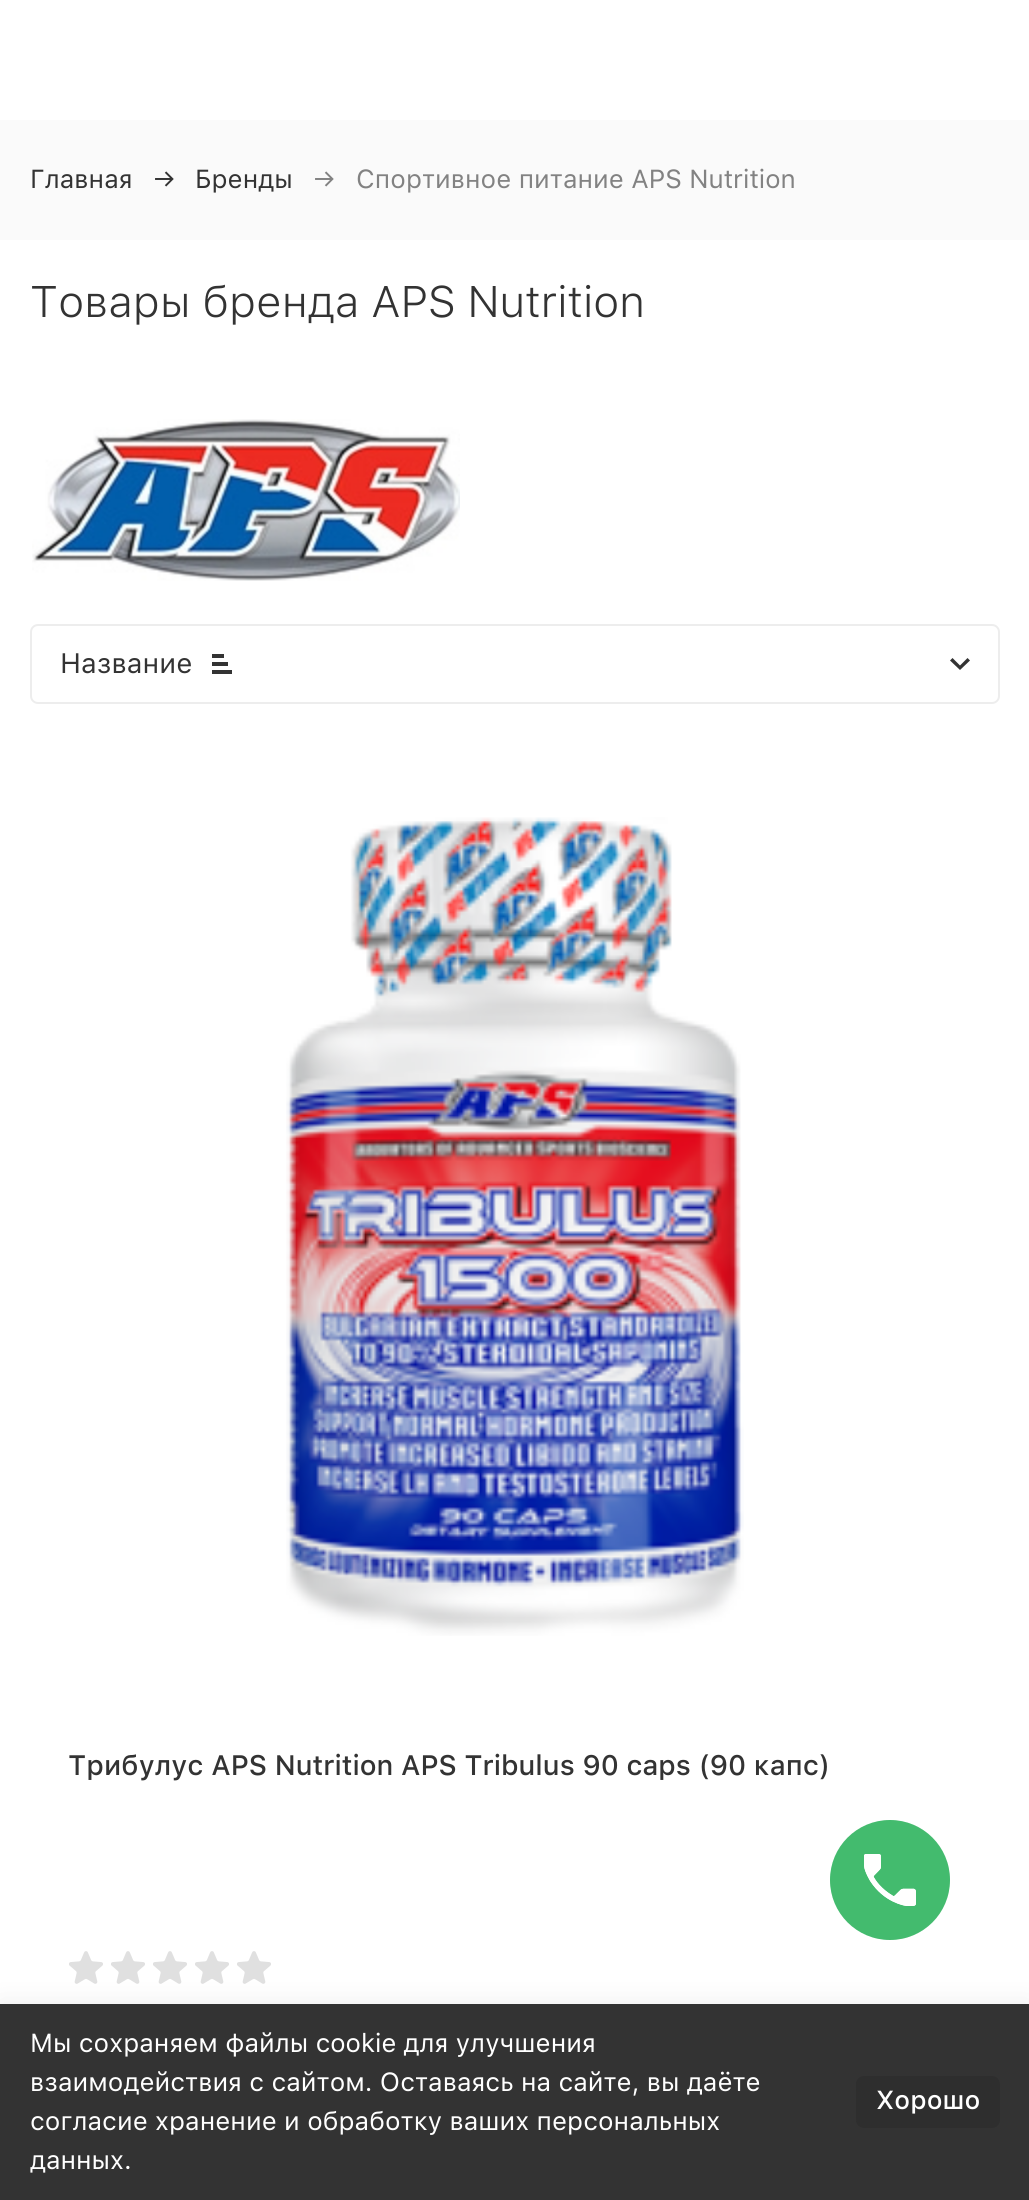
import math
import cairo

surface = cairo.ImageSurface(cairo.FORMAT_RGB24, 1029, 2200)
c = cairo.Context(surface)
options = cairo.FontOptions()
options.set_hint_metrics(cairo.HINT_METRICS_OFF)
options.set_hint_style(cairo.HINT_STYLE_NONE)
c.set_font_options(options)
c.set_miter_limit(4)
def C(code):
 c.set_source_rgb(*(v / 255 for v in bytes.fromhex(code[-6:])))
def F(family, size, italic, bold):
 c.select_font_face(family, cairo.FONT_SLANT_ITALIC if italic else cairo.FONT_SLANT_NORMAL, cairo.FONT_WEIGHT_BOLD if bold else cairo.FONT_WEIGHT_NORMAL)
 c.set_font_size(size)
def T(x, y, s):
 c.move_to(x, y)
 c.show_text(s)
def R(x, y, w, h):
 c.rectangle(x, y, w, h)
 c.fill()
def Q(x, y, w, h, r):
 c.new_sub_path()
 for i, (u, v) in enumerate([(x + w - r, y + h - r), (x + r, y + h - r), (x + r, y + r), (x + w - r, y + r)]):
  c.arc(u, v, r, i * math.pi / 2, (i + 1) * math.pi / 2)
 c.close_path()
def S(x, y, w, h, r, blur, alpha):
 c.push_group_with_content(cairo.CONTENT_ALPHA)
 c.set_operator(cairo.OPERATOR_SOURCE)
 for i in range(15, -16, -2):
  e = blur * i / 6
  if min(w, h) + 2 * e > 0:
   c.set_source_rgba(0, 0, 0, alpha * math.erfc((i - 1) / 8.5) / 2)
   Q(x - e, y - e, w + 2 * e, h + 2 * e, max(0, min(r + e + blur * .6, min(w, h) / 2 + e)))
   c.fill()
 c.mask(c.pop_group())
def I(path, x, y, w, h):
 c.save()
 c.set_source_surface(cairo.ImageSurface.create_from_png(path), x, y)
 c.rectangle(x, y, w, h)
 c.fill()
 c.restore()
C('ffffff')
c.paint()
C('fafafa')
R(0,120,1029,120)
F('SF Pro Text',26,0,0)
C('333333')
T(30,188,'Главная')
T(153,188,'→')
T(195,188,'Бренды')
C('828282')
T(313,188,'→')
T(356,188,'Спортивное питание APS Nutrition')
F('SF Pro Text Light',44,0,0)
C('333333')
T(30,317,'Товары бренда APS Nutrition')
I('1.png',32,419,428,162)
Q(31,625,968,78,7)
C('ededed')
c.stroke()
F('SF Pro Text',28,0,0)
C('333333')
T(60,673,'Название')
I('2.png',212,654,20,20)
c.new_path()
c.move_to(952.5,658)
c.line_to(960,665.5)
c.line_to(967.5,658)
c.line_to(970,660.5)
c.line_to(960,670)
c.line_to(950,660.5)
c.close_path()
c.fill()
I('3.png',286,817,458,819)
F('SF Pro Text Medium',28,0,0)
T(68,1775,'Трибулус APS Nutrition APS Tribulus 90 caps (90 капс)')
I('4.png',69,1951,34,33)
I('4.png',111,1951,34,33)
I('4.png',153,1951,34,33)
I('4.png',195,1951,34,33)
I('4.png',237,1951,34,33)
C('44bb6e')
c.arc(890,1880,60,0,2 * math.pi)
c.fill()
c.set_source_rgba(0.267,0.733,0.431,0.1)
c.arc(890,1880,60,0,2 * math.pi)
c.fill()
I('5.png',864,1854,52,52)
I('6.png',864,1854,52,52)
C('000000')
S(0,2004,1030,196,0,15,.07)
C('333333')
R(0,2004,1029,196)
F('SF Pro Text',26,0,0)
C('ffffff')
T(30,2052,'Мы сохраняем файлы cookie для улучшения')
T(30,2091,'взаимодействия с сайтом. Оставаясь на сайте, вы даёте')
T(30,2130,'согласие хранение и обработку ваших персональных')
T(30,2169,'данных.')
C('2e2e2e')
Q(856,2076,144,52,8)
c.fill()
F('SF Pro Text Medium',26,0,0)
C('ffffff')
T(876,2109,'Хорошо')
surface.write_to_png('o.png')
